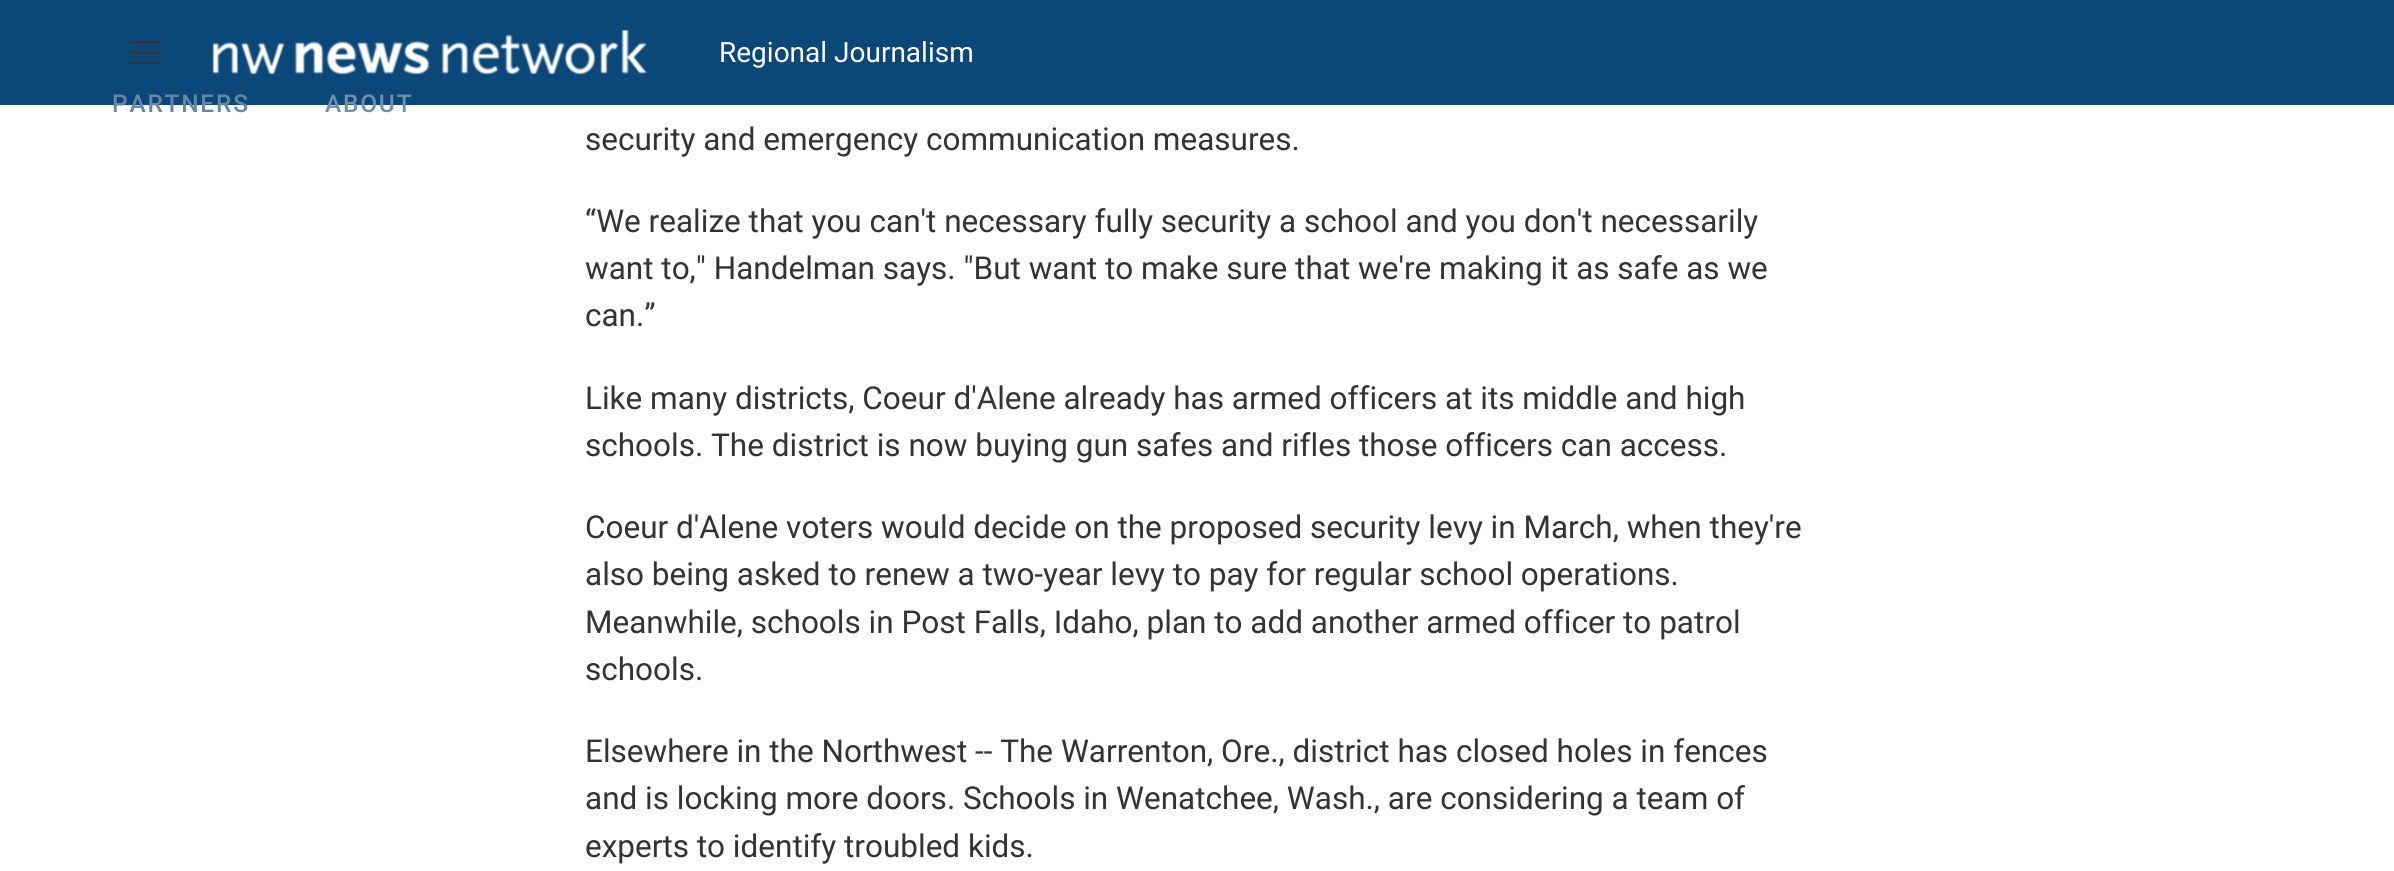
import math
import cairo

surface = cairo.ImageSurface(cairo.FORMAT_RGB24, 2394, 871)
c = cairo.Context(surface)
options = cairo.FontOptions()
options.set_hint_metrics(cairo.HINT_METRICS_OFF)
options.set_hint_style(cairo.HINT_STYLE_NONE)
c.set_font_options(options)
c.set_miter_limit(4)
def C(code):
 c.set_source_rgb(*(v / 255 for v in bytes.fromhex(code[-6:])))
def F(family, size, italic, bold):
 c.select_font_face(family, cairo.FONT_SLANT_ITALIC if italic else cairo.FONT_SLANT_NORMAL, cairo.FONT_WEIGHT_BOLD if bold else cairo.FONT_WEIGHT_NORMAL)
 c.set_font_size(size)
def T(x, y, s):
 c.move_to(x, y)
 c.show_text(s)
def L(x, y, s, letter, word):
 c.move_to(x, y)
 for ch in s:
  c.show_text(ch)
  c.rel_move_to(letter + word * (ch == ' '), 0)
def R(x, y, w, h):
 c.rectangle(x, y, w, h)
 c.fill()
def I(path, x, y, w, h):
 c.save()
 c.set_source_surface(cairo.ImageSurface.create_from_png(path), x, y)
 c.rectangle(x, y, w, h)
 c.fill()
 c.restore()
C('ffffff')
c.paint()
C('0b4778')
R(0,0,2394,105)
C('f5f5f5')
R(0,105,2394,2)
I('1.png',130,41,31,23)
I('2.png',212,29,435,46)
F('Roboto',28,0,0)
C('ffffff')
T(719,62,'Regional Journalism')
F('Roboto Medium',24.5,0,0)
C('6188a7')
L(112,112,'PARTNERS',1.75,0)
C('6d91ae')
L(325,112,'ABOUT',1.75,0)
F('Roboto',31.5,0,0)
C('333333')
T(585,150,'security and emergency communication measures.')
T(585,232,'“We realize that you can\'t necessary fully security a school and you don\'t necessarily')
T(585,279,'want to," Handelman says. "But want to make sure that we\'re making it as safe as we')
T(585,326,'can.”')
T(585,409,'Like many districts, Coeur d\'Alene already has armed officers at its middle and high')
T(585,456,'schools. The district is now buying gun safes and rifles those officers can access.')
T(585,538,'Coeur d\'Alene voters would decide on the proposed security levy in March, when they\'re')
T(585,585,'also being asked to renew a two-year levy to pay for regular school operations.')
T(585,633,'Meanwhile, schools in Post Falls, Idaho, plan to add another armed officer to patrol')
T(585,680,'schools.')
T(585,762,'Elsewhere in the Northwest -- The Warrenton, Ore., district has closed holes in fences')
T(585,809,'and is locking more doors. Schools in Wenatchee, Wash., are considering a team of')
T(585,857,'experts to identify troubled kids.')
surface.write_to_png('o.png')
